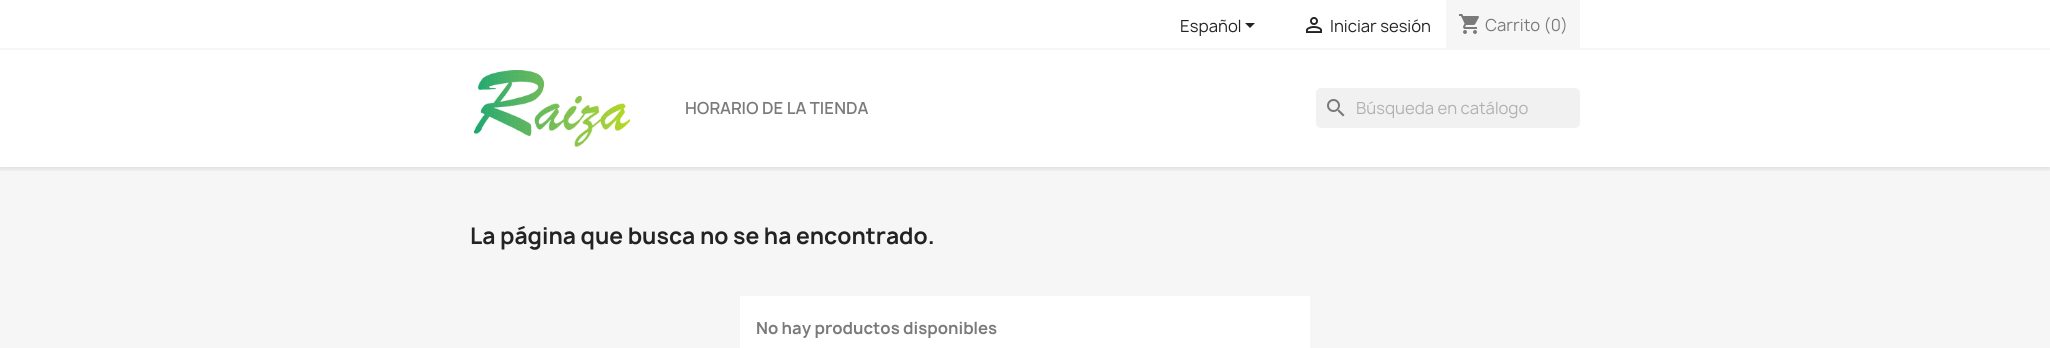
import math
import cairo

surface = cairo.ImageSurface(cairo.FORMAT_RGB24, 2050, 348)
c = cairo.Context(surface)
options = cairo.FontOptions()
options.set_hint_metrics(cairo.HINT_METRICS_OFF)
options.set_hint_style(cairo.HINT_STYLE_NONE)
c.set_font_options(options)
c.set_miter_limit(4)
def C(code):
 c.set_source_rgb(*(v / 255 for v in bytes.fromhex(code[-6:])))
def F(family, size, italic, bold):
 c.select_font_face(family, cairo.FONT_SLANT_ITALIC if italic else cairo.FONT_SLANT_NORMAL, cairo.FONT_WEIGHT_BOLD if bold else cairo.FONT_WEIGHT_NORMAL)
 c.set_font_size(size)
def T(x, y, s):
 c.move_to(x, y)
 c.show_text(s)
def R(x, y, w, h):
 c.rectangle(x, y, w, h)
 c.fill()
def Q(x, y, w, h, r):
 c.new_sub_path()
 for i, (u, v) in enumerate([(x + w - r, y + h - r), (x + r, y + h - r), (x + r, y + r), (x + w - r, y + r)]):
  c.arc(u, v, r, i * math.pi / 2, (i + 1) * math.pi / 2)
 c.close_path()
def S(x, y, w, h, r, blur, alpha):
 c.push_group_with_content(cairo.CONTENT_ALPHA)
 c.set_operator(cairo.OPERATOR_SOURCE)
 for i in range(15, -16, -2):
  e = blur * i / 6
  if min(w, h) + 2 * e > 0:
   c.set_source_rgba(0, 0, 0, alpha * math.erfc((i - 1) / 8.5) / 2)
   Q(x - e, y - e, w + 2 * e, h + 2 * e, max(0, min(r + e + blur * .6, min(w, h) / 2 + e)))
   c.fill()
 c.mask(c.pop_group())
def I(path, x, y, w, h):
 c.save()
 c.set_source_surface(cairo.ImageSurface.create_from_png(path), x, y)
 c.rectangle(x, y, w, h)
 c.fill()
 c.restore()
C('ffffff')
c.paint()
C('f6f6f6')
R(0,167,2050,181)
c.save()
c.rectangle(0,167,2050,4)
c.clip()
C('000000')
S(0,2,2050,167,0,2.5,.11)
c.restore()
R(0,48,2050,2)
F('Manrope',16,0,0)
C('232323')
T(1180,32,'Español')
c.new_path()
c.move_to(1245,23)
c.line_to(1255,23)
c.line_to(1250,28)
c.close_path()
c.fill()
I('1.png',1306,17,16,16)
T(1330,32,'Iniciar sesión')
C('f6f6f6')
R(1446,0,134,48)
I('2.png',1459,14,20,20)
C('7a7a7a')
T(1485,31,'Carrito (0)')
I('3.png',473,70,157,77)
F('Manrope SemiBold',16,0,0)
T(685,114,'HORARIO DE LA TIENDA')
C('f1f1f1')
Q(1316,88,264,40,5)
c.fill()
I('4.png',1327,99,18,18)
F('Manrope',16,0,0)
C('b1b1b1')
T(1356,114,'Búsqueda en catálogo')
F('Manrope',22,0,1)
C('232323')
T(470,244,'La página que busca no se ha encontrado.')
C('ffffff')
R(740,296,570,52)
F('Manrope',16,0,1)
C('7a7a7a')
T(756,334,'No hay productos disponibles')
surface.write_to_png('o.png')
